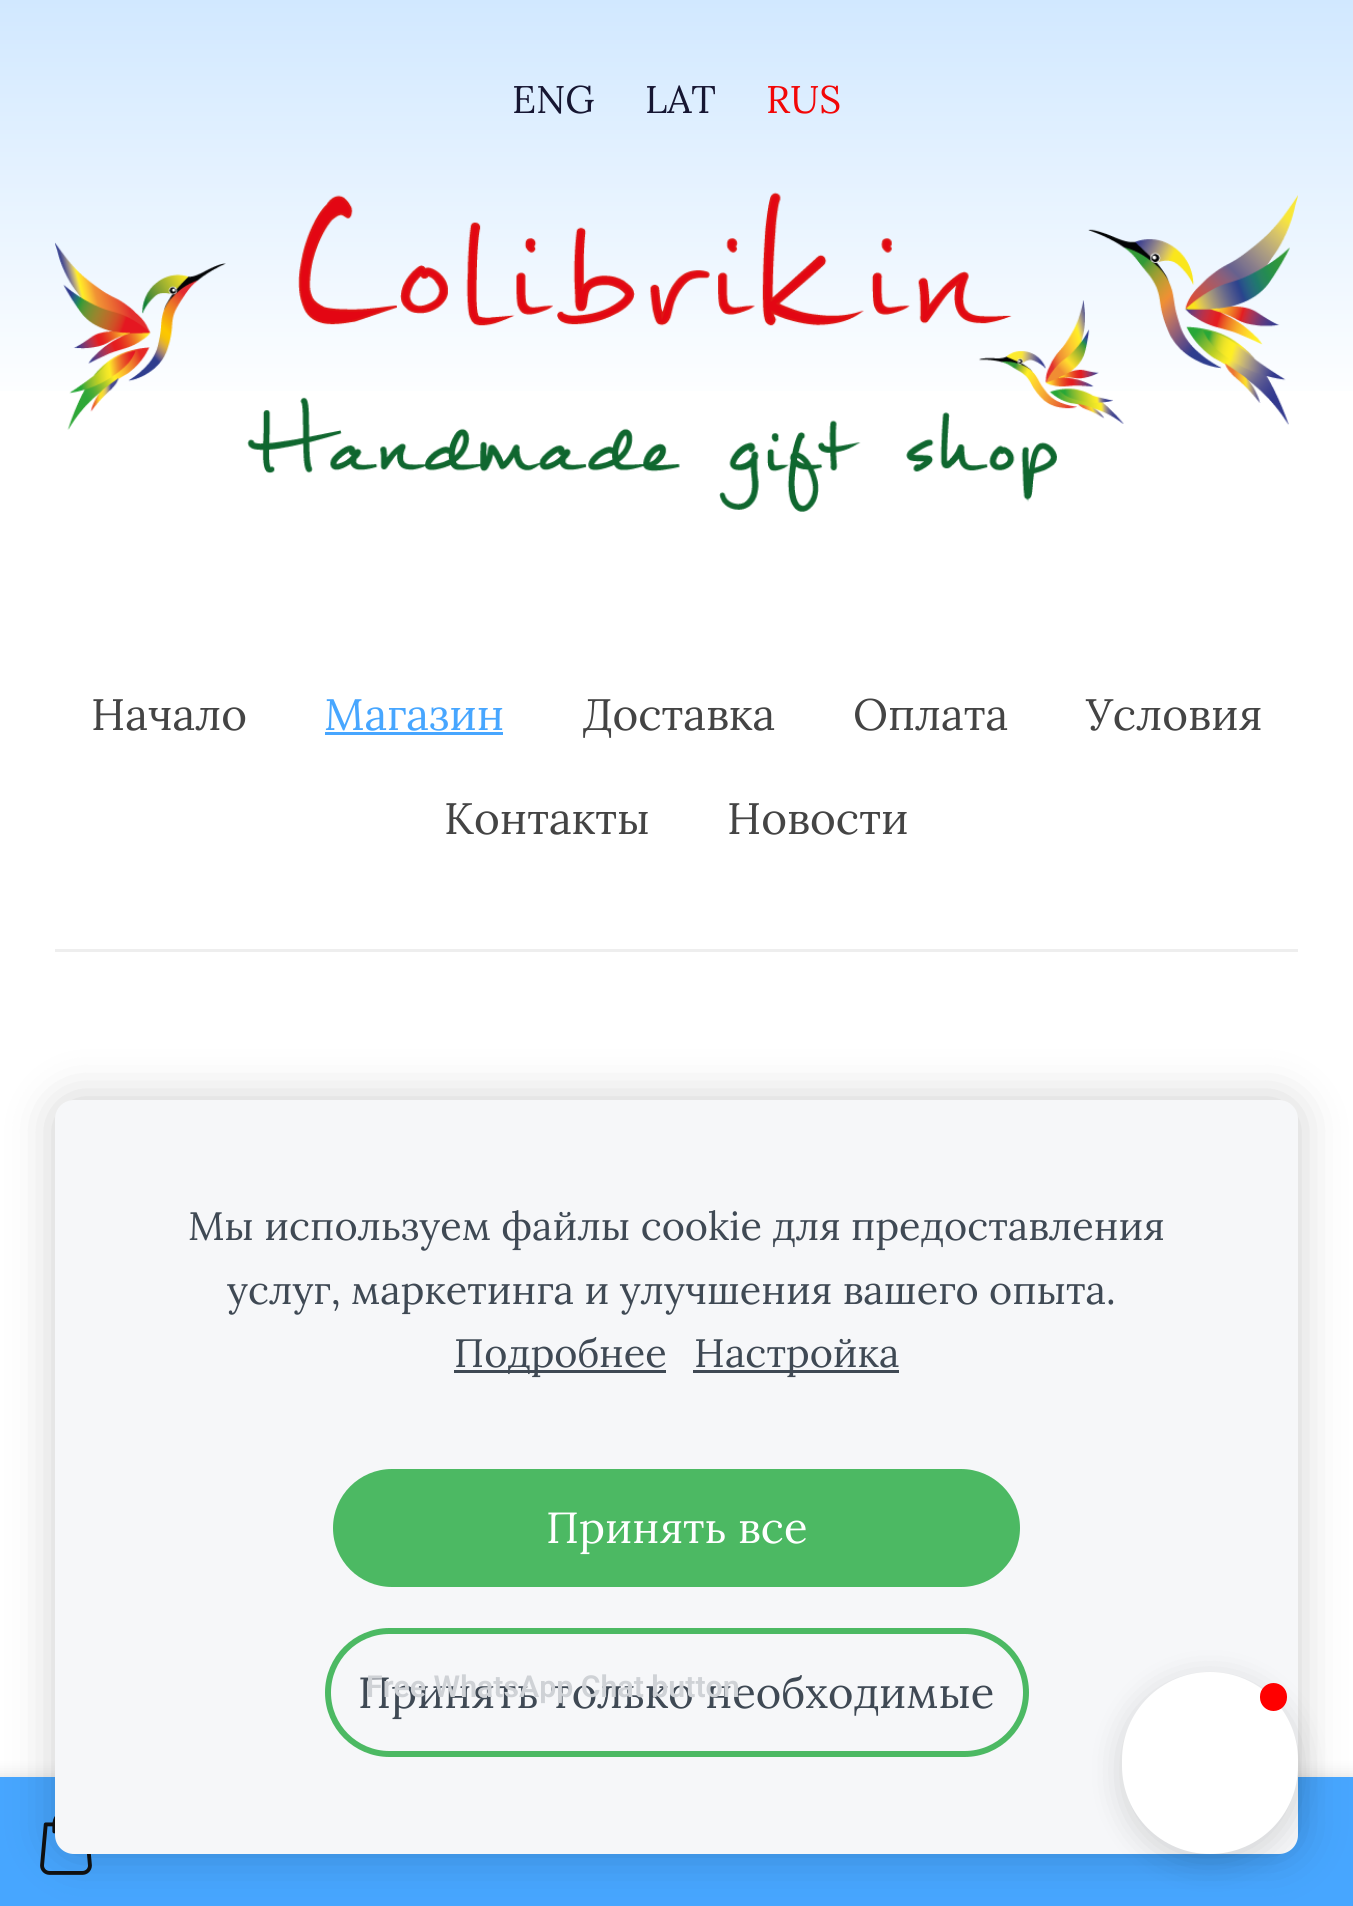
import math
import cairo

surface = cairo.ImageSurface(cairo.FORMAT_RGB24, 1353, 1906)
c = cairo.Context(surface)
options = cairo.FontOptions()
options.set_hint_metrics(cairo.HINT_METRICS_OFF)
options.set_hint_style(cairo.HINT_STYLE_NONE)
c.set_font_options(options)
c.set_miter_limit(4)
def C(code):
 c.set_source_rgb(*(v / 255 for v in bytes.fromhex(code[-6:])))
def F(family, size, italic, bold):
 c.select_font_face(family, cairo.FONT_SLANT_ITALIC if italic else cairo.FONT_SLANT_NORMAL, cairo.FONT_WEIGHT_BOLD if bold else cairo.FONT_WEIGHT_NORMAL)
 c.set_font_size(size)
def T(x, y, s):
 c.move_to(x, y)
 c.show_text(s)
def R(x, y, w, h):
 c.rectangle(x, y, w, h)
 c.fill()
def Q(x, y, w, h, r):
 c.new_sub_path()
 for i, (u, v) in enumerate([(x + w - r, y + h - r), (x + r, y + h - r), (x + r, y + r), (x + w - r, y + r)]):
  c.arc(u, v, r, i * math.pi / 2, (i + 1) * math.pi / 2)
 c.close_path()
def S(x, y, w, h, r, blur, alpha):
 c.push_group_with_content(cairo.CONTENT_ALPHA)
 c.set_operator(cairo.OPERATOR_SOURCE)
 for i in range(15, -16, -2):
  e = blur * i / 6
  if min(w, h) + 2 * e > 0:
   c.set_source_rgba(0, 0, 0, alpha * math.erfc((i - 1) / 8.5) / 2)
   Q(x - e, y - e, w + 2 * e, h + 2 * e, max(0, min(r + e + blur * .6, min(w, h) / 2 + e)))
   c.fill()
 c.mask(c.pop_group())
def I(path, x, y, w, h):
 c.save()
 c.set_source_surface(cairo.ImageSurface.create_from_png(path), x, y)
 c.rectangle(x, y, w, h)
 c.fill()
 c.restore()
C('ffffff')
c.paint()
gradient = cairo.LinearGradient(69,0,69,413)
gradient.add_color_stop_rgba(0,0.82,0.91,1,1)
gradient.add_color_stop_rgba(1,1,1,1,1)
c.set_source(gradient)
R(0,0,1353,391)
F('Lora',38.5,0,0)
C('161632')
T(512,113,'ENG')
T(645,113,'LAT')
C('f20707')
T(766,113,'RUS')
I('1.png',55,192,1243,320)
F('Lora',44,0,0)
C('444444')
T(91,730,'Начало')
C('47a6ff')
T(324,730,'Магазин')
R(325,732,178,3)
C('444444')
T(582,730,'Доставка')
T(853,730,'Оплата')
T(1086,730,'Условия')
T(444,834,'Контакты')
T(727,834,'Новости')
C('eeeeee')
R(55,949,1243,3)
C('000000')
S(-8,1774,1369,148,0,7,.1)
C('47a6ff')
R(0,1777,1353,129)
I('2.png',40,1816,52,59)
C('000000')
S(55,1100,1243,754,19,23.5,.2)
C('f6f7f9')
Q(55,1100,1243,754,19)
c.fill()
F('Lora',39.6,0,0)
C('3f4954')
T(188,1240,'Мы используем файлы cookie для предоставления')
T(227,1304,'услуг, маркетинга и улучшения вашего опыта.')
R(454,1370,212,3)
T(454,1367,'Подробнее')
R(693,1370,206,3)
T(694,1367,'Настройка')
C('4cb963')
Q(333,1469,687,118,59)
c.fill()
F('Lora',43.5,0,0)
C('ffffff')
T(546,1543,'Принять все')
Q(328,1631,698,123,61.5)
C('4cb963')
c.set_line_width(6)
c.stroke()
C('3f4954')
T(358,1708,'Принять только необходимые')
F('Roboto SemiBold',30.25,0,0)
C('cfd2d6')
T(366,1697,'Free WhatsApp Chat button')
C('000000')
S(1122,1680,176,182,88,16.5,.15)
C('ffffff')
Q(1122,1672,176,182,88)
c.fill()
C('ff0000')
Q(1260,1683,27,28,13.5)
c.fill()
surface.write_to_png('o.png')
